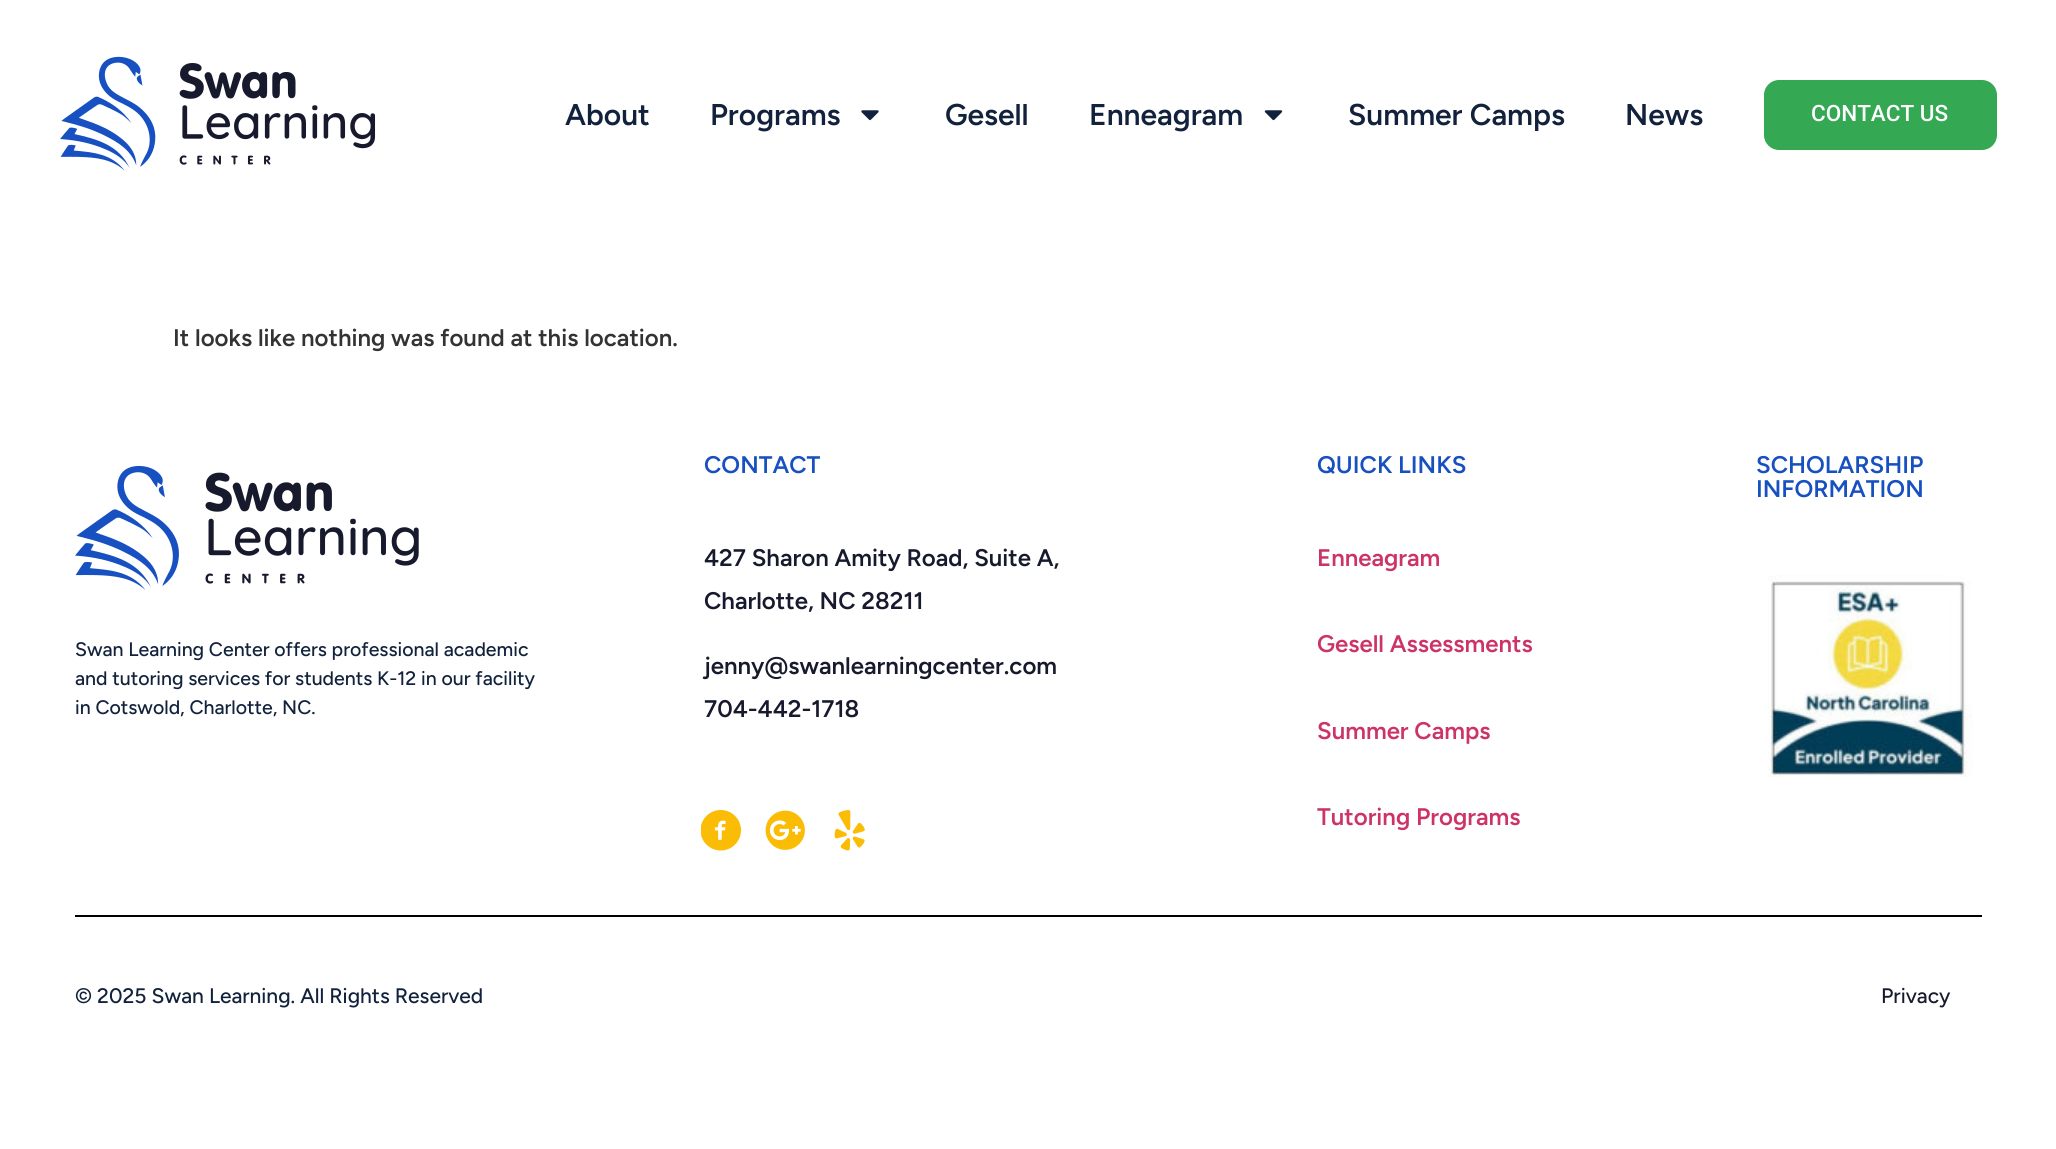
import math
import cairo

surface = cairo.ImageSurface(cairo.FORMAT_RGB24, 2056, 1149)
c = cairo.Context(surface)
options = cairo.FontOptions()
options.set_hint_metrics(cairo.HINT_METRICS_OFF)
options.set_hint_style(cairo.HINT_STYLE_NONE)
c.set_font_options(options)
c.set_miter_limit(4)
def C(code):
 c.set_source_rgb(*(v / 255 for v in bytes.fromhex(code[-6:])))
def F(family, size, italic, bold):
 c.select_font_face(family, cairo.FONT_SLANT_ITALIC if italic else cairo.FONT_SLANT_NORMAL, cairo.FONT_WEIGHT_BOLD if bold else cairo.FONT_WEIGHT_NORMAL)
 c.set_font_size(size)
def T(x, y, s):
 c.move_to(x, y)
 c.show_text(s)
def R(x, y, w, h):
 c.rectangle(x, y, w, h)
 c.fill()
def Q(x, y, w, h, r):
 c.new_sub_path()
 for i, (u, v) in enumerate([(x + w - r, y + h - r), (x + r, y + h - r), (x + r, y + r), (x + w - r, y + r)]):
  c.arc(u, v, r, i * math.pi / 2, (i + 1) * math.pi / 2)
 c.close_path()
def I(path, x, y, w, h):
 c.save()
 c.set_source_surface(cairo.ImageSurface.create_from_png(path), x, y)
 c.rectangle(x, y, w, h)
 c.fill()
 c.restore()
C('ffffff')
c.paint()
I('1.png',60,56,316,115)
F('Figtree SemiBold',30,0,0)
C('12223c')
T(565,125,'About')
T(710,125,'Programs')
I('2.png',861,110,18,11)
T(945,125,'Gesell')
T(1089,125,'Enneagram')
I('3.png',1264,110,19,11)
T(1348,125,'Summer Camps')
T(1625,125,'News')
C('34a853')
Q(1764,80,233,70,15)
c.fill()
F('Roboto Medium',22.5,0,0)
C('ffffff')
T(1811,121,'CONTACT US')
F('Figtree SemiBold',24,0,0)
C('333333')
T(173,346,'It looks like nothing was found at this location.')
C('1750c1')
T(704,473,'CONTACT')
C('171a2d')
T(704,566,'427 Sharon Amity Road, Suite A,')
T(704,609,'Charlotte, NC 28211')
T(704,674,'jenny@swanlearningcenter.com')
T(704,717,'704-442-1718')
I('4.png',701,810,40,41)
I('5.png',765,810,40,40)
I('6.png',834,810,31,41)
C('1750c1')
T(1317,473,'QUICK LINKS')
C('cc3366')
T(1317,566,'Enneagram')
T(1317,652,'Gesell Assessments')
T(1317,739,'Summer Camps')
T(1317,825,'Tutoring Programs')
C('1750c1')
T(1756,473,'SCHOLARSHIP')
T(1756,497,'INFORMATION')
I('7.png',1768,575,205,202)
I('8.png',75,465,344,125)
F('Figtree Medium',19.5,0,0)
C('12223c')
T(75,656,'Swan Learning Center offers professional academic')
T(75,685,'and tutoring services for students K-12 in our facility')
T(75,714,'in Cotswold, Charlotte, NC.')
C('000000')
R(75,915,1907,2)
F('Figtree Medium',21,0,0)
C('12223c')
T(75,1003,'© 2025 Swan Learning. All Rights Reserved')
C('171a2d')
T(1881,1003,'Privacy')
surface.write_to_png('o.png')
